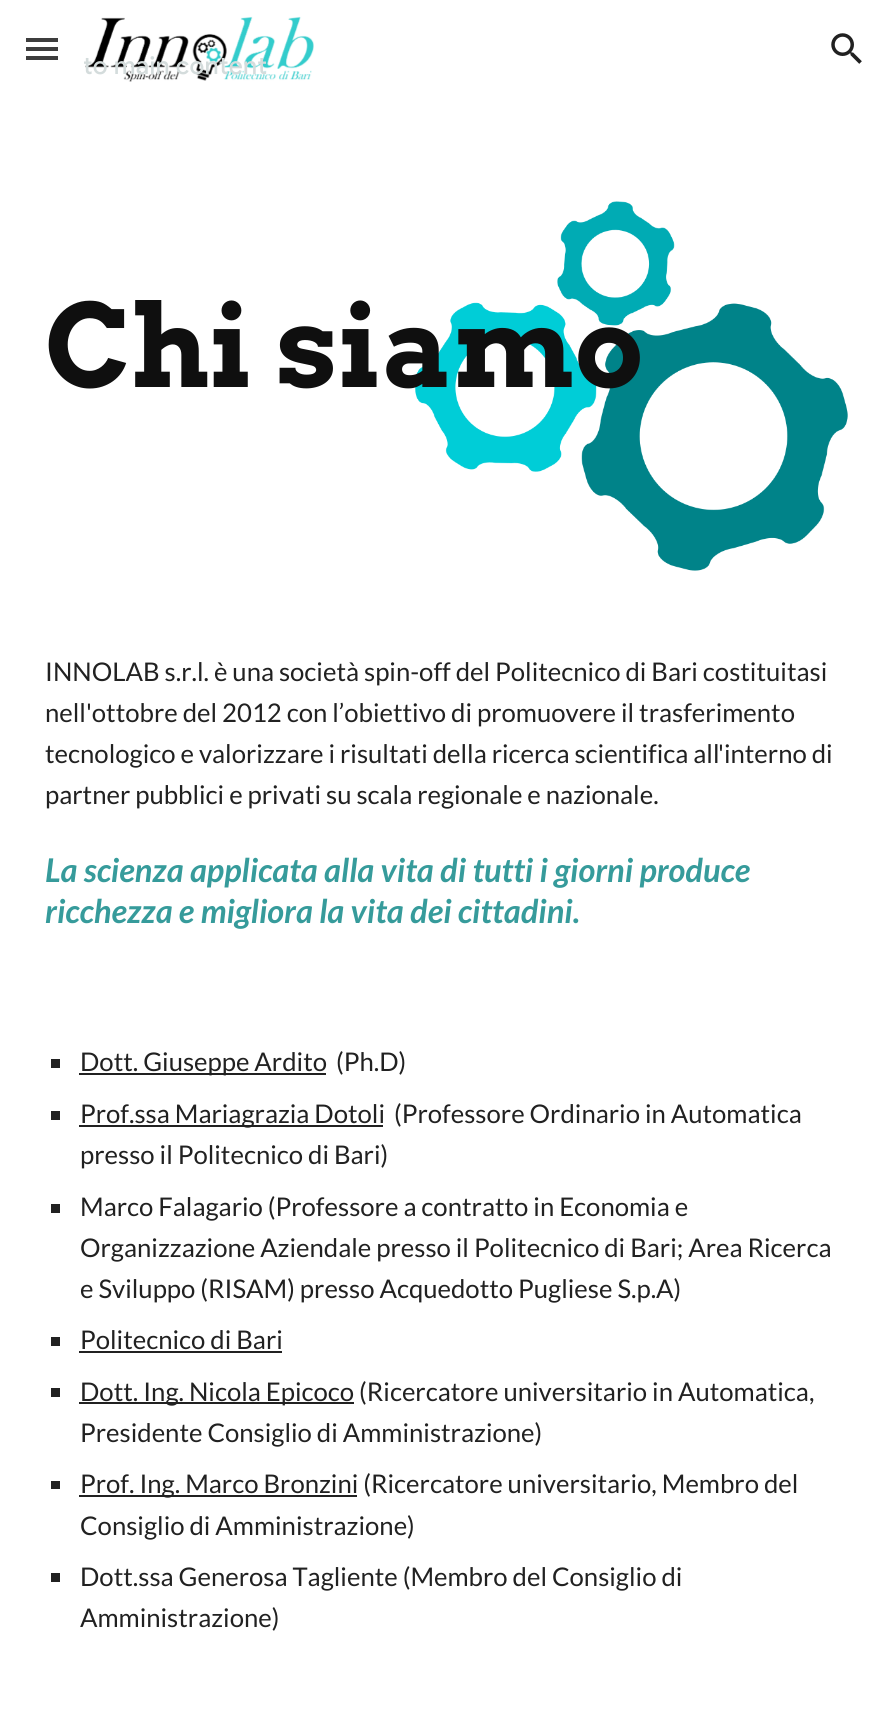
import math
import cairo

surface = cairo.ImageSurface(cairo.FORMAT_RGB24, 888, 1709)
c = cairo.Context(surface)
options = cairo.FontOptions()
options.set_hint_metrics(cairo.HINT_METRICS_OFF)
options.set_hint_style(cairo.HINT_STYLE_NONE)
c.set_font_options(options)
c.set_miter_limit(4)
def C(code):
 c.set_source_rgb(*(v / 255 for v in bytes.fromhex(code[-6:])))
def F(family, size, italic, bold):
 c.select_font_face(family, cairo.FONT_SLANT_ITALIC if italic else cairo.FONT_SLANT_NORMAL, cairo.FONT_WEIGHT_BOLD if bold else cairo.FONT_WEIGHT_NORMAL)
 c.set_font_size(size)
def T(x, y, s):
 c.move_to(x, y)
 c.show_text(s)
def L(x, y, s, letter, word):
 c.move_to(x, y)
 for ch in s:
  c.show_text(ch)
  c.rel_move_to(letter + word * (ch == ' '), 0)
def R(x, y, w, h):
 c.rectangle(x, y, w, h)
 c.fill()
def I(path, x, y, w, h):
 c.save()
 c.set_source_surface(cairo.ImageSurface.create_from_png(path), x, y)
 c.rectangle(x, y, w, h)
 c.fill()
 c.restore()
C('ffffff')
c.paint()
I('1.png',85,16,229,66)
F('Google Sans Medium',24.5,0,0)
C('d4dcdc')
L(83,74,'to main content',.25,0)
C('ffffff')
R(83,61,1,3)
C('3d3d3d')
R(26,38,32,4)
R(26,47,32,4)
R(26,56,32,4)
I('2.png',831,33,31,31)
I('3.png',415,201,433,370)
F('Arvo',114.5,0,1)
C('0f0f0f')
T(45,387,'Chi siamo')
F('Lato',25.7,0,0)
C('212121')
T(45,681,'INNOLAB s.r.l. è una società spin-off del Politecnico di Bari costituitasi')
T(45,722,'nell\'ottobre del 2012 con l’obiettivo di promuovere il trasferimento')
T(45,763,'tecnologico e valorizzare i risultati della ricerca scientifica all')
T(718,763,'\'interno di')
T(45,804,'partner pubblici e privati su scala regionale e nazionale.')
F('Lato',32.7,1,1)
C('369b9b')
T(45,882,'La scienza applicata alla vita di tutti i giorni produce')
T(45,923,'ricchezza e migliora la vita dei cittadini.')
C('212121')
R(51,1059,9,9)
R(79,1073,247,2)
F('Lato',25.7,0,0)
T(80,1071,'Dott. Giuseppe Ardito')
T(336,1071,'(Ph.D)')
R(51,1111,9,9)
R(79,1125,304,2)
T(80,1123,'Prof.ssa Mariagrazia Dotoli')
T(394,1123,'(Professore Ordinario in Automatica')
T(80,1164,'presso il Politecnico di Bari)')
R(51,1204,9,9)
T(80,1216,'Marco Falagario (Professore a contratto in Economia e')
T(80,1257,'Organizzazione Aziendale presso il Politecnico di Bari; Area Ricerca')
T(80,1298,'e Sviluppo (RISAM) presso Acquedotto Pugliese S.p.A)')
R(51,1337,9,9)
T(80,1349,'Politecnico di Bari')
R(79,1351,203,2)
R(51,1388,9,9)
R(79,1402,275,2)
T(80,1401,'Dott. Ing. Nicola Epicoco (Ricercatore universitario in Automatica,')
T(80,1442,'Presidente Consiglio di Amministrazione)')
R(51,1481,9,8)
R(79,1495,278,2)
T(80,1493,'Prof. Ing. Marco Bronzini (Ricercatore universitario, Membro del')
T(80,1535,'Consiglio di Amministrazione)')
R(51,1573,9,9)
T(80,1586,'Dott.ssa Generosa Tagliente (Membro del Consiglio di')
T(80,1627,'Amministrazione)')
surface.write_to_png('o.png')
